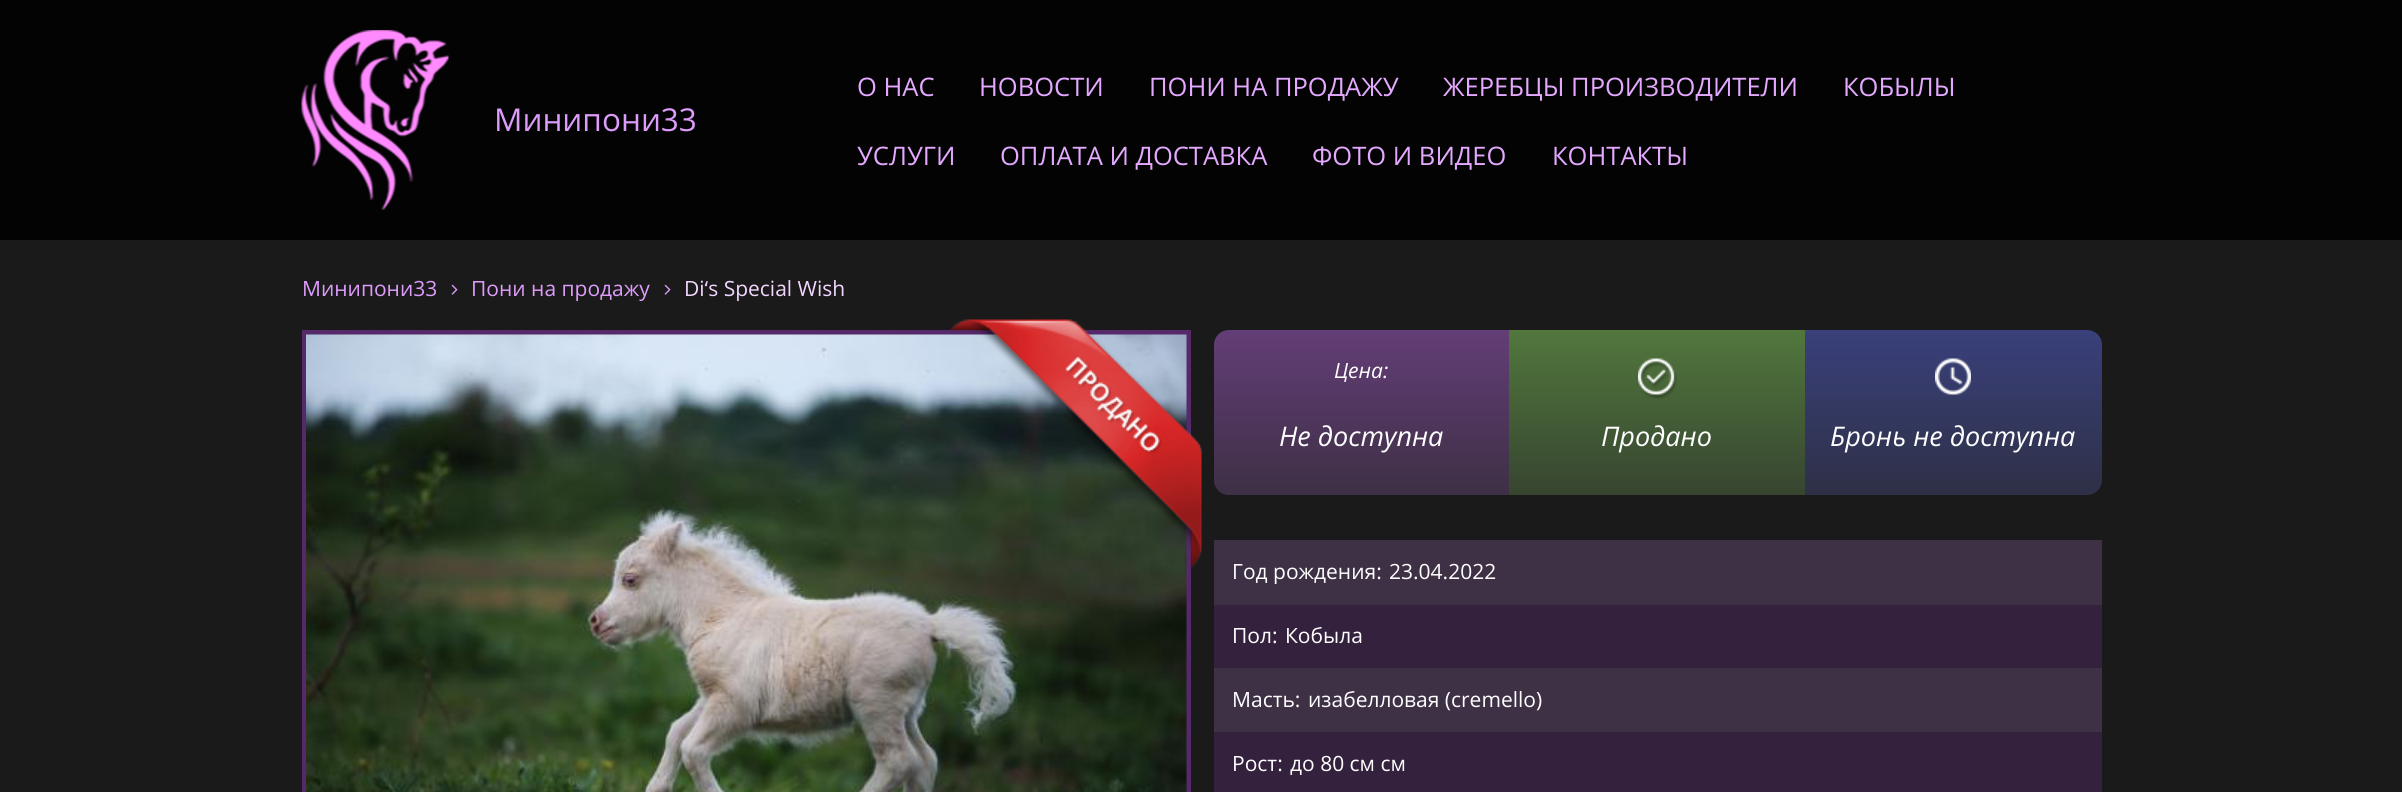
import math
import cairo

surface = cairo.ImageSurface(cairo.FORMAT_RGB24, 2402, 792)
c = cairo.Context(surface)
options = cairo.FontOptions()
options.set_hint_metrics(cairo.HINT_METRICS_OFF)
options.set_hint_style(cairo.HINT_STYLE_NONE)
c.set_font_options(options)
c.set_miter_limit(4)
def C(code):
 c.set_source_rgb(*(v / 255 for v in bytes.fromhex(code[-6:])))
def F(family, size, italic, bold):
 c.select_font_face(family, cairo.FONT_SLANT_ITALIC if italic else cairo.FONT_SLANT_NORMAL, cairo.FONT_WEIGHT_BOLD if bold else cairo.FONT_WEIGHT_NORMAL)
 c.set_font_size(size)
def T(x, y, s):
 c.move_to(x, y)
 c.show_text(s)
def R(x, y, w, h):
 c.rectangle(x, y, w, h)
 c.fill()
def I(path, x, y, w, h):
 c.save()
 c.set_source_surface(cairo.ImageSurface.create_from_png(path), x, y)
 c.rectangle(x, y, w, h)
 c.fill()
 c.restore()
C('1a1a1a')
c.paint()
C('030303')
R(0,0,2402,240)
I('1.png',301,30,148,180)
F('Open Sans',31.5,0,0)
C('dd9cfb')
T(494,131,'Минипони33')
F('Open Sans',25.5,0,0)
C('e4a9ff')
T(857,96,'О НАС')
T(979,96,'НОВОСТИ')
T(1149,96,'ПОНИ НА ПРОДАЖУ')
T(1443,96,'ЖЕРЕБЦЫ ПРОИЗВОДИТЕЛИ')
T(1843,96,'КОБЫЛЫ')
T(857,165,'УСЛУГИ')
T(1000,165,'ОПЛАТА И ДОСТАВКА')
T(1312,165,'ФОТО И ВИДЕО')
T(1552,165,'КОНТАКТЫ')
F('Open Sans',21,0,0)
C('dd9cfb')
T(302,296,'Минипони33')
I('2.png',451,284,7,11)
T(471,296,'Пони на продажу')
I('2.png',664,284,7,11)
C('f2d6ff')
T(684,296,'Di‘s Special Wish')
c.rectangle(304.5,332.5,884,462)
C('56296a')
c.set_line_width(5)
c.stroke()
I('4.png',306,334,881,458)
I('3.png',950,319,252,249)
gradient = cairo.LinearGradient(1361,495,1361,330)
gradient.add_color_stop_rgba(0,0.243,0.188,0.271,1)
gradient.add_color_stop_rgba(1,0.388,0.239,0.467,1)
c.set_source(gradient)
c.new_path()
c.move_to(1229,330)
c.line_to(1509,330)
c.line_to(1509,495)
c.line_to(1229,495)
c.curve_to(1220.5,495,1214,488.5,1214,480)
c.line_to(1214,345)
c.curve_to(1214,336.5,1220.5,330,1229,330)
c.close_path()
c.fill()
F('Open Sans',21,1,0)
C('ffffff')
T(1334,378,'Цена:')
F('Open Sans',27,1,0)
T(1279,446,'Не доступна')
gradient = cairo.LinearGradient(1657,330,1657,495)
gradient.add_color_stop_rgba(0,0.318,0.467,0.239,1)
gradient.add_color_stop_rgba(1,0.216,0.271,0.188,1)
c.set_source(gradient)
R(1509,330,296,165)
I('5.png',1638,358,39,41)
C('ffffff')
T(1601,446,'Продано')
gradient = cairo.LinearGradient(1953,330,1953,495)
gradient.add_color_stop_rgba(0,0.224,0.251,0.482,1)
gradient.add_color_stop_rgba(1,0.18,0.188,0.275,1)
c.set_source(gradient)
c.new_path()
c.move_to(1805,330)
c.line_to(2087,330)
c.curve_to(2095.5,330,2102,336.5,2102,345)
c.line_to(2102,480)
c.curve_to(2102,488.5,2095.5,495,2087,495)
c.line_to(1805,495)
c.close_path()
c.fill()
I('6.png',1935,358,36,37)
C('ffffff')
T(1830,446,'Бронь не доступна')
C('3e3045')
R(1214,540,888,65)
F('Open Sans',21,0,0)
C('ffffff')
T(1232,579,'Год рождения:')
T(1389,579,'23.04.2022')
C('34213e')
R(1214,605,888,63)
C('ffffff')
T(1232,643,'Пол:')
T(1285,643,'Кобыла')
C('3e3045')
R(1214,668,888,64)
C('ffffff')
T(1232,707,'Масть:')
T(1308,707,'изабелловая (cremello)')
C('34213e')
R(1214,732,888,60)
C('ffffff')
T(1232,771,'Рост:')
T(1290,771,'до 80 см см')
surface.write_to_png('o.png')
